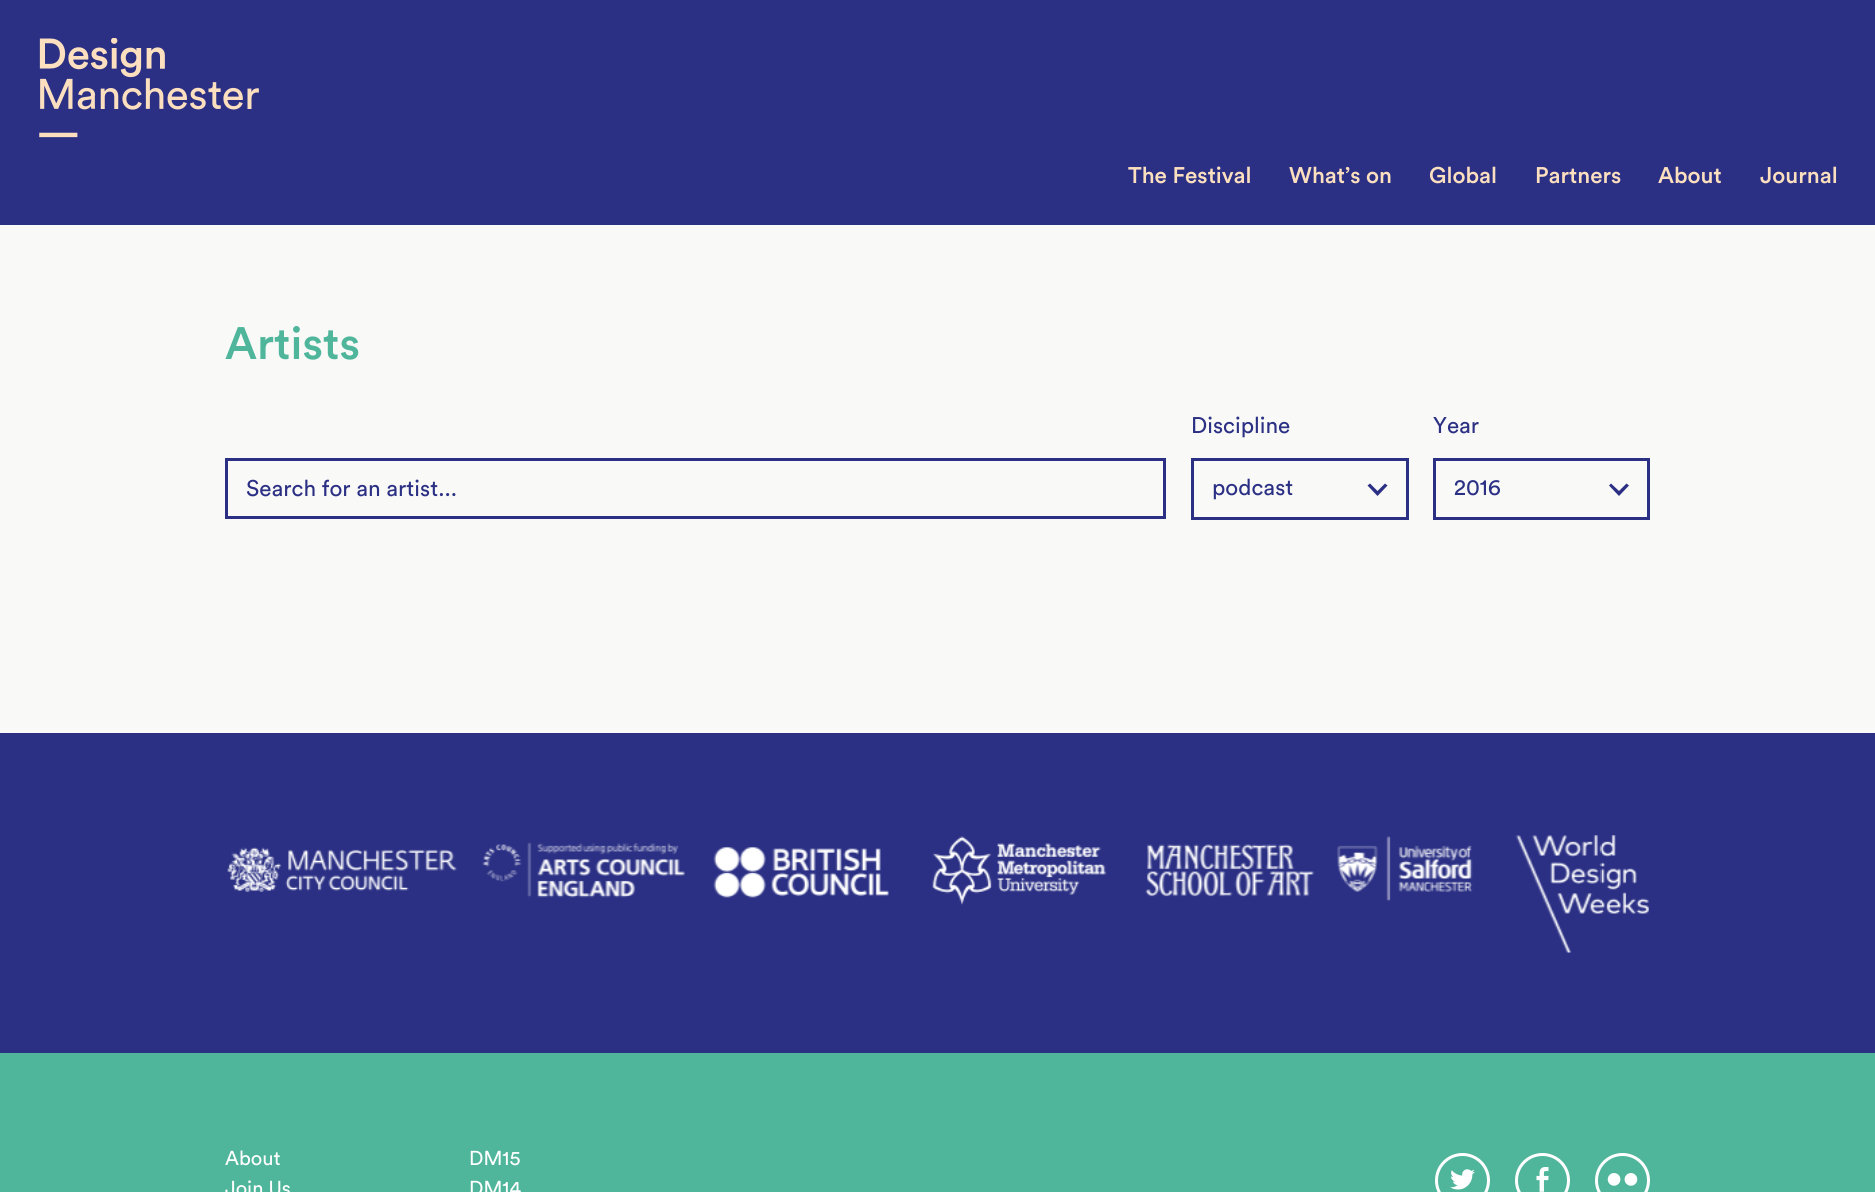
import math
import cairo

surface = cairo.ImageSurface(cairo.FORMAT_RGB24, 1875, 1192)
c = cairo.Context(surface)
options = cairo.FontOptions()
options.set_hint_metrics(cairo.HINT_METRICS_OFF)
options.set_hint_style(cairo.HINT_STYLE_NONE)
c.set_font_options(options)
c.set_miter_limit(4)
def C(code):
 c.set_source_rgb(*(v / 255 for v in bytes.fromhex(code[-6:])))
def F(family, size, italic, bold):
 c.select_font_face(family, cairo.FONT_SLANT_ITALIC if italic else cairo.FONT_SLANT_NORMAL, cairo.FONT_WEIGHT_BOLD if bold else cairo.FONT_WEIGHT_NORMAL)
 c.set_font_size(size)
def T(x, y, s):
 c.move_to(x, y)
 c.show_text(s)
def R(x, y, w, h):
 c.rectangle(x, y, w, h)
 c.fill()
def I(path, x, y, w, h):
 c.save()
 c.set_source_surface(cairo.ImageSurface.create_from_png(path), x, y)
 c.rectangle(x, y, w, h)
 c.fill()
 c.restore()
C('f9f9f7')
c.paint()
C('2b3084')
R(0,0,1875,225)
I('1.png',39,38,220,100)
F('Circular Medium',22.5,0,0)
C('fcdfbf')
T(1128,183,'The Festival')
T(1289,183,'What’s on')
T(1429,183,'Global')
T(1535,183,'Partners')
T(1658,183,'About')
T(1760,183,'Journal')
F('Circular Medium',45,0,0)
C('4fb59b')
T(225,359,'Artists')
c.rectangle(226.5,459.5,938,58)
C('2b3084')
c.set_line_width(3)
c.stroke()
F('Circular',22.5,0,0)
T(246,496,'Search for an artist...')
T(1191,433,'Discipline')
c.rectangle(1192.5,459.5,215,59)
c.stroke()
T(1212,495,'podcast')
c.new_path()
c.move_to(1385,483.5)
c.line_to(1377.5,491)
c.line_to(1370,483.5)
c.line_to(1367.5,485.5)
c.line_to(1377.5,496)
c.line_to(1387.5,485.5)
c.close_path()
c.fill()
T(1433,433,'Year')
c.rectangle(1434.5,459.5,214,59)
c.stroke()
T(1454,495,'2016')
c.new_path()
c.move_to(1626.5,483.5)
c.line_to(1619,491)
c.line_to(1611,483.5)
c.line_to(1609,485.5)
c.line_to(1619,496)
c.line_to(1629,485.5)
c.close_path()
c.fill()
R(0,733,1875,320)
I('2.png',227,835,1422,118)
C('4fb59b')
R(0,1053,1875,139)
F('Circular',20,0,0)
C('ffffff')
T(225,1165,'About')
T(225,1195,'Join Us')
T(469,1165,'DM15')
T(469,1195,'DM14')
c.new_path()
c.arc(1462.5,1180.5,26,0,2 * math.pi)
c.stroke()
I('3.png',1450,1169,25,21)
c.arc(1542.5,1180.5,26,0,2 * math.pi)
c.stroke()
I('4.png',1536,1167,13,25)
c.arc(1622.5,1180.5,26,0,2 * math.pi)
c.stroke()
I('5.png',1607,1173,31,13)
surface.write_to_png('o.png')
